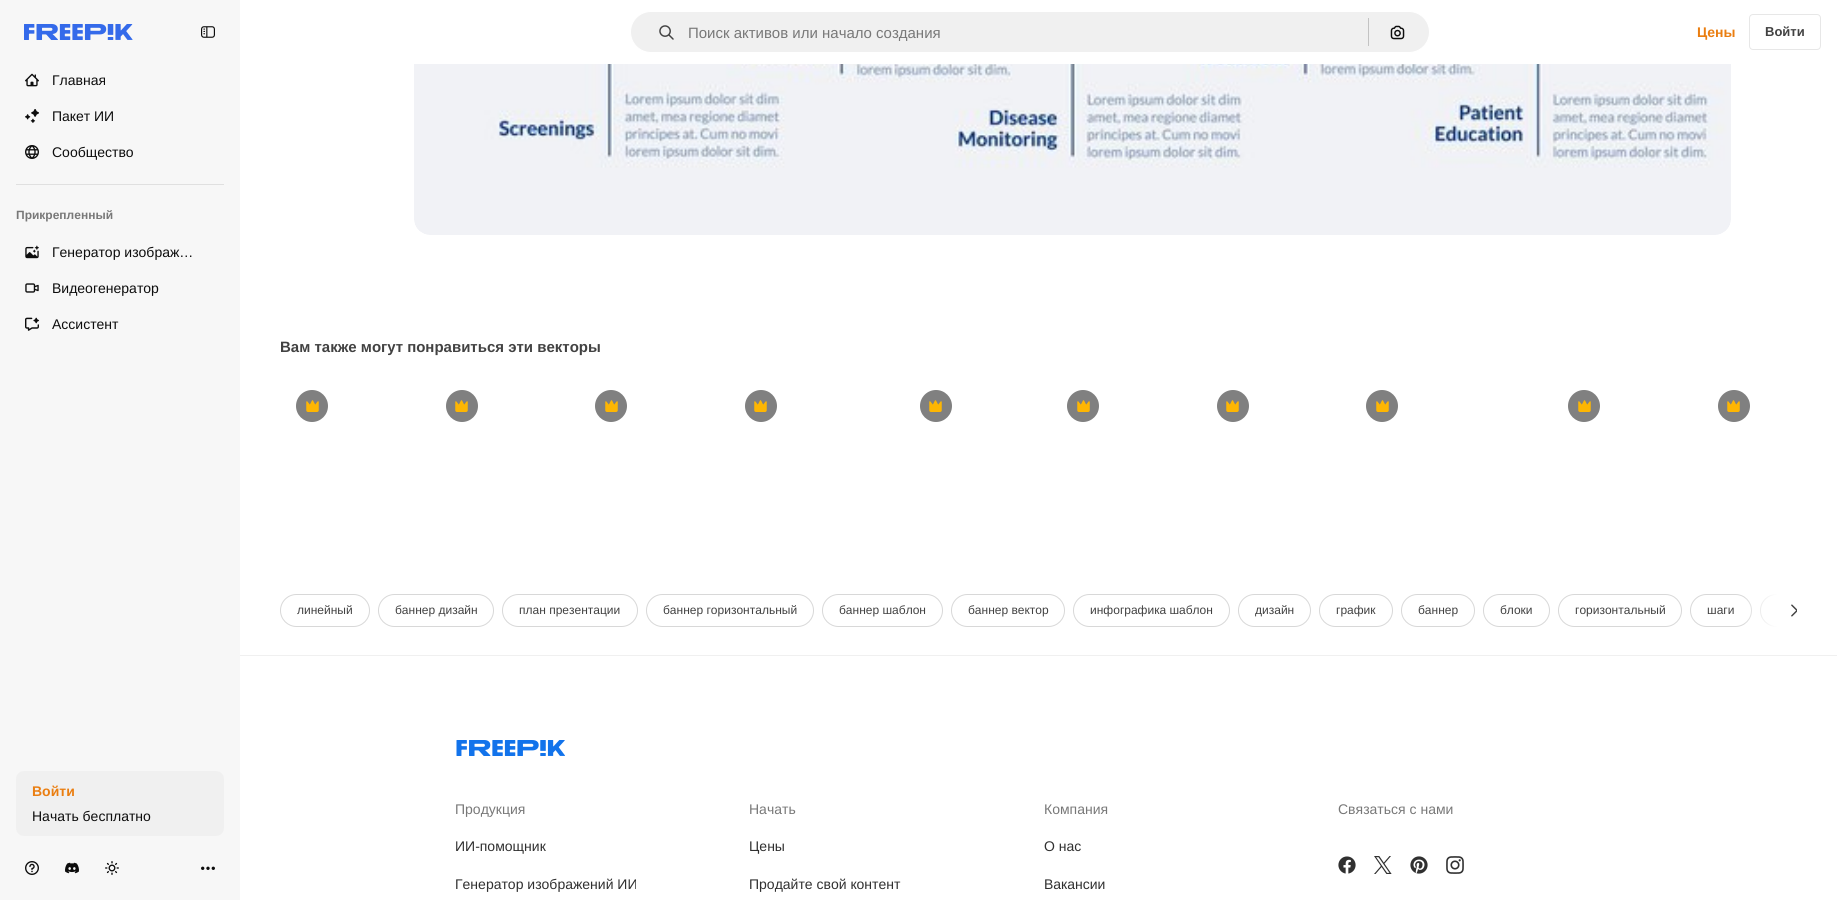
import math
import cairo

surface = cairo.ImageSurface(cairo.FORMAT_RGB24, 1837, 900)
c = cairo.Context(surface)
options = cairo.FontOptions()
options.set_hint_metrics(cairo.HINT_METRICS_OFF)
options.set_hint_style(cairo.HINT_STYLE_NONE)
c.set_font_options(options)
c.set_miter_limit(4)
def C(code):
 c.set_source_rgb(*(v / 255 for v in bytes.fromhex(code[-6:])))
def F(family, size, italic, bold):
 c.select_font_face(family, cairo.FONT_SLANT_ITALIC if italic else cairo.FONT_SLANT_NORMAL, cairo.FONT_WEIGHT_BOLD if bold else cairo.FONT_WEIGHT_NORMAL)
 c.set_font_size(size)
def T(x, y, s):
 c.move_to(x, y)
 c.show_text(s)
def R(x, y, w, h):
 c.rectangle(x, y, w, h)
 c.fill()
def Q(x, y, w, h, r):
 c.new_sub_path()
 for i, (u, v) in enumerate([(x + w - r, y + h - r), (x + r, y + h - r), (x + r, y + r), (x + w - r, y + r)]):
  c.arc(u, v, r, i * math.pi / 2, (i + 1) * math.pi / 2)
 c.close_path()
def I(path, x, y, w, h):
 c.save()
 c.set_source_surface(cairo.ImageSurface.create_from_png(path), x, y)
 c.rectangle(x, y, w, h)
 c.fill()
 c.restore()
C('ffffff')
c.paint()
C('f7f7f7')
R(0,0,240,900)
I('1.png',24,24,109,16)
I('2.png',201,26,14,12)
I('3.png',25,73,14,14)
F('Liberation Sans',14,0,0)
C('0d0d0d')
T(52,85,'Главная')
I('4.png',25,109,14,14)
T(52,121,'Пакет ИИ')
I('5.png',25,145,14,14)
T(52,157,'Сообщество')
C('e0e0e0')
R(16,184,208,1)
F('Liberation Sans',12,0,1)
C('787878')
T(16,219,'Прикрепленный')
I('6.png',25,245,14,14)
F('Liberation Sans',14,0,0)
C('0d0d0d')
T(52,257,'Генератор изображ…')
I('7.png',25,283,14,10)
T(52,293,'Видеогенератор')
I('8.png',25,317,14,14)
T(52,329,'Ассистент')
C('f0f0f0')
Q(16,771,208,65,8)
c.fill()
F('Liberation Sans',14,0,1)
C('ea7e11')
T(32,796,'Войти')
F('Liberation Sans',14,0,0)
C('0d0d0d')
T(32,821,'Начать бесплатно')
I('9.png',25,861,14,14)
I('10.png',65,862,14,12)
I('11.png',105,861,14,14)
I('12.png',201,866,14,4)
C('f0f0f0')
Q(630.5,11.5,799,41,20.5)
c.fill_preserve()
C('ffffff')
c.set_line_width(1)
c.stroke()
I('13.png',659,25,15,15)
F('Liberation Sans',15,0,0)
C('787878')
T(688,38,'Поиск активов или начало создания')
C('c3c3c3')
R(1368,18,1,28)
I('14.png',1390,25,15,15)
F('Liberation Sans',14,0,1)
C('ea7e11')
T(1697,37,'Цены')
Q(1749.5,14.5,71,35,3.5)
C('e7e7e7')
c.stroke()
F('Liberation Sans',13,0,1)
C('424242')
T(1765,36,'Войти')
I('15.png',414,64,1317,171)
F('Liberation Sans',15,0,1)
T(280,352,'Вам также могут понравиться эти векторы')
C('808080')
c.new_path()
c.arc(312,406,16,0,2 * math.pi)
c.fill()
I('16.png',306,400,13,12)
c.arc(462,406,16,0,2 * math.pi)
c.fill()
I('16.png',455,400,13,12)
c.arc(611,406,16,0,2 * math.pi)
c.fill()
I('16.png',605,400,13,12)
c.arc(761,406,16,0,2 * math.pi)
c.fill()
I('16.png',754,400,13,12)
c.arc(936,406,16,0,2 * math.pi)
c.fill()
I('16.png',929,400,13,12)
c.arc(1083,406,16,0,2 * math.pi)
c.fill()
I('16.png',1077,400,13,12)
c.arc(1233,406,16,0,2 * math.pi)
c.fill()
I('16.png',1226,400,13,12)
c.arc(1382,406,16,0,2 * math.pi)
c.fill()
I('16.png',1376,400,13,12)
c.arc(1584,406,16,0,2 * math.pi)
c.fill()
I('16.png',1578,400,13,12)
c.arc(1734,406,16,0,2 * math.pi)
c.fill()
I('16.png',1727,400,13,12)
Q(280.5,594.5,89,32,16)
C('d8d8d8')
c.stroke()
F('Liberation Sans',12,0,0)
C('424242')
T(297,614,'линейный')
Q(378.5,594.5,115,32,16)
C('d8d8d8')
c.stroke()
C('424242')
T(395,614,'баннер дизайн')
Q(502.5,594.5,135,32,16)
C('d8d8d8')
c.stroke()
C('424242')
T(519,614,'план презентации')
Q(646.5,594.5,167,32,16)
C('d8d8d8')
c.stroke()
C('424242')
T(663,614,'баннер горизонтальный')
Q(822.5,594.5,120,32,16)
C('d8d8d8')
c.stroke()
C('424242')
T(839,614,'баннер шаблон')
Q(951.5,594.5,113,32,16)
C('d8d8d8')
c.stroke()
C('424242')
T(968,614,'баннер вектор')
Q(1073.5,594.5,156,32,16)
C('d8d8d8')
c.stroke()
C('424242')
T(1090,614,'инфографика шаблон')
Q(1238.5,594.5,72,32,16)
C('d8d8d8')
c.stroke()
C('424242')
T(1255,614,'дизайн')
Q(1319.5,594.5,73,32,16)
C('d8d8d8')
c.stroke()
C('424242')
T(1336,614,'график')
Q(1401.5,594.5,73,32,16)
C('d8d8d8')
c.stroke()
C('424242')
T(1418,614,'баннер')
Q(1483.5,594.5,66,32,16)
C('d8d8d8')
c.stroke()
C('424242')
T(1500,614,'блоки')
Q(1558.5,594.5,123,32,16)
C('d8d8d8')
c.stroke()
C('424242')
T(1575,614,'горизонтальный')
Q(1690.5,594.5,61,32,16)
C('d8d8d8')
c.stroke()
C('424242')
T(1707,614,'шаги')
c.save()
c.rectangle(280,594,1517,33)
c.clip()
Q(1760.5,594.5,70,32,16)
C('d8d8d8')
c.stroke()
c.restore()
C('ffffff')
R(1777,594,20,33)
gradient = cairo.LinearGradient(1777,611,1742,611)
gradient.add_color_stop_rgba(0,1,1,1,1)
gradient.add_color_stop_rgba(1,1,1,1,0)
c.set_source(gradient)
R(1745,594,32,33)
I('17.png',1791,604,6,13)
C('f0f0f0')
R(240,655,1597,1)
I('18.png',456,740,109,16)
F('Liberation Sans',14,0,0)
C('787878')
T(455,814,'Продукция')
C('303030')
T(455,851,'ИИ-помощник')
T(455,889,'Генератор изображений ИИ')
C('787878')
T(749,814,'Начать')
C('303030')
T(749,851,'Цены')
T(749,889,'Продайте свой контент')
C('787878')
T(1044,814,'Компания')
C('303030')
T(1044,851,'О нас')
T(1044,889,'Вакансии')
C('787878')
T(1338,814,'Связаться с нами')
I('19.png',1338,856,18,18)
I('20.png',1374,856,18,18)
I('21.png',1410,856,18,18)
I('22.png',1446,856,18,18)
surface.write_to_png('o.png')
